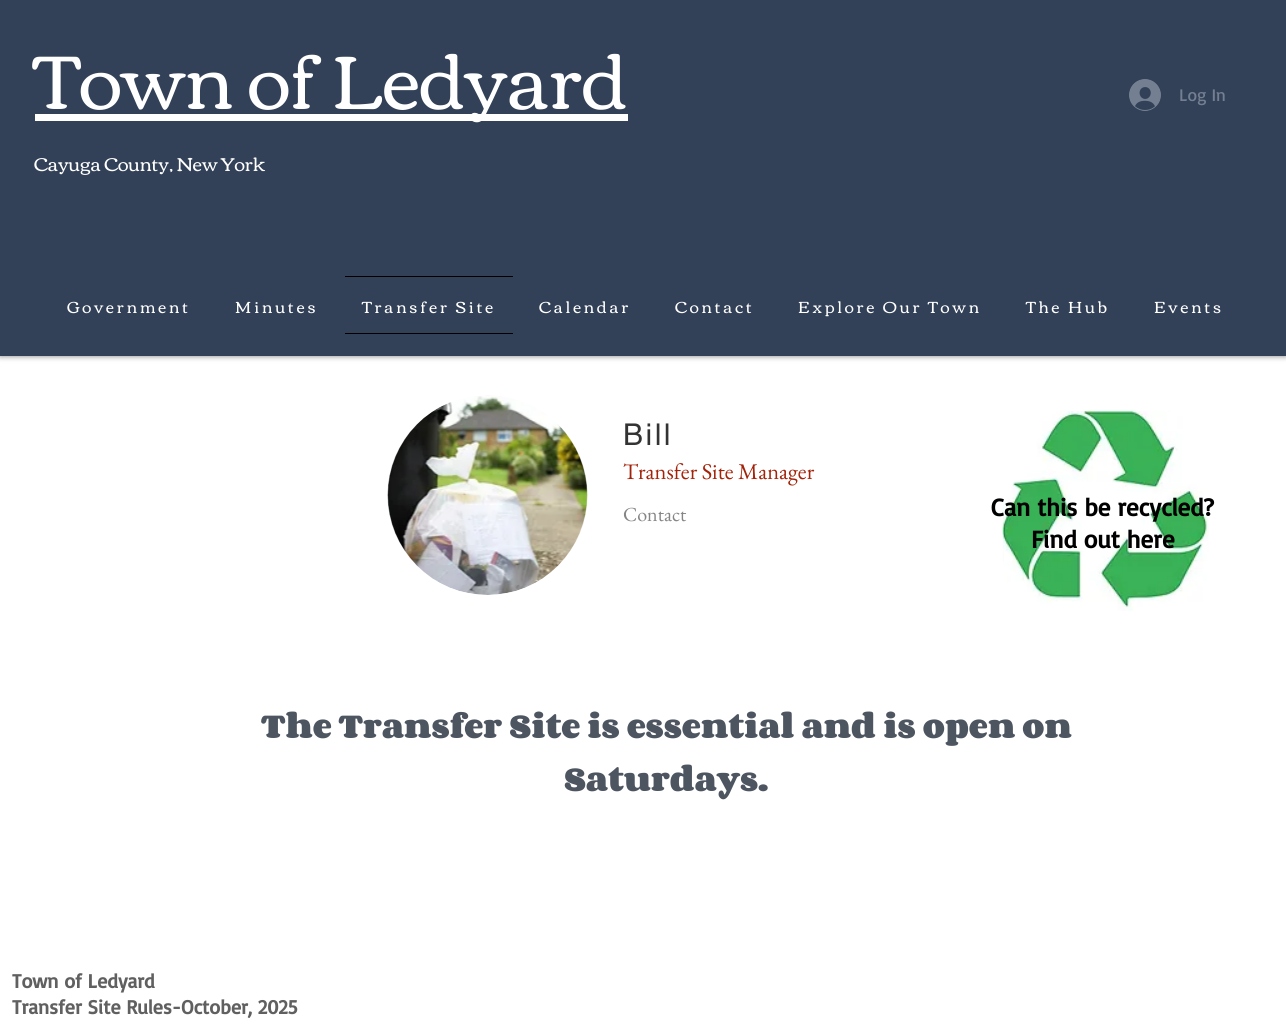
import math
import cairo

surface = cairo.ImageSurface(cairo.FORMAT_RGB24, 1286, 1026)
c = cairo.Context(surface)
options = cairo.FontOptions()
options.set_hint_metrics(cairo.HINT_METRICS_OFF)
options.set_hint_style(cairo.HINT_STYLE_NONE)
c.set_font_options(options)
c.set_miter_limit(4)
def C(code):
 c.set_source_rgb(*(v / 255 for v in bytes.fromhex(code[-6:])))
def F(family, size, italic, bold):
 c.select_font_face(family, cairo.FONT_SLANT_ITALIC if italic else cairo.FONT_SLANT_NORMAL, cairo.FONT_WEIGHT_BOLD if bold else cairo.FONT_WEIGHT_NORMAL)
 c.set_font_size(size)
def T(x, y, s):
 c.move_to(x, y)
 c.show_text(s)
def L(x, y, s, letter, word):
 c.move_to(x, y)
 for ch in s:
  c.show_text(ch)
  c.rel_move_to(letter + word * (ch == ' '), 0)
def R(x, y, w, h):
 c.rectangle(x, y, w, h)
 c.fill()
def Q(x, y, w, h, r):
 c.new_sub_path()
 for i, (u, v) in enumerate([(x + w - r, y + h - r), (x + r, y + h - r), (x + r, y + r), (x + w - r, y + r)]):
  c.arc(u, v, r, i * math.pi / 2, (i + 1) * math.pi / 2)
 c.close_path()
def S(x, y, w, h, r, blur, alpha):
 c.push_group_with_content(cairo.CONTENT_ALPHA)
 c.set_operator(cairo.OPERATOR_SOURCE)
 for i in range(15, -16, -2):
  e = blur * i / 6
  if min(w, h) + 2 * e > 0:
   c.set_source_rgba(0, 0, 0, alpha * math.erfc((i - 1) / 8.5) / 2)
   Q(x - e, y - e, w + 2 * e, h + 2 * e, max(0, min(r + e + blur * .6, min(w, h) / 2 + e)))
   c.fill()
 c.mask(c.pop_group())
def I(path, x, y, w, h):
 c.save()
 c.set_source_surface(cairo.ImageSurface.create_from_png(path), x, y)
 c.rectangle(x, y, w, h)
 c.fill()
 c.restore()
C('ffffff')
c.paint()
C('000000')
S(0,0,1286,356,0,3,.5)
C('324158')
R(0,0,1286,356)
C('ffffff')
R(35,114,593,7)
F('Corben',76.25,0,0)
T(34,109,'Town of Ledyard')
F('Corben',18.75,0,0)
T(34,171,'Cayuga County, New York')
I('1.png',1129,79,32,32)
F('Basic',17.5,0,0)
C('748092')
T(1179,101,'Log In')
F('Corben',16.25,0,0)
C('ffffff')
L(67,313,'Government',2.8,0)
L(235,313,'Minutes',2.8,0)
C('000000')
R(345,276,168,1)
R(345,333,168,1)
C('ffffff')
L(362,313,'Transfer Site',2.8,0)
L(539,313,'Calendar',2.8,0)
L(675,313,'Contact',2.8,0)
L(798,313,'Explore Our Town',2.8,0)
L(1026,313,'The Hub',2.8,0)
L(1154,313,'Events',2.8,0)
I('2.png',387,395,201,200)
F('helvetica',30,0,0)
C('333333')
L(623,445,'Bill',2.5,0)
F('EB Garamond',22.5,0,0)
C('a2230a')
T(623,479,'Transfer Site Manager')
F('EB Garamond',20,0,0)
C('858585')
T(623,521,'Contact')
I('3.png',1002,410,207,201)
F('Basic',25,0,1)
C('000000')
T(991,516,'Can this be recycled?')
T(1031,548,'Find out here')
F('Corben',28.75,0,1)
C('4d5561')
T(261,738,'The Transfer Site is essential and is open on')
T(564,791,'Saturdays.')
F('Basic',20,0,1)
C('606060')
T(12,988,'Town of Ledyard')
T(12,1014,'Transfer Site Rules-October, 2025')
surface.write_to_png('o.png')
